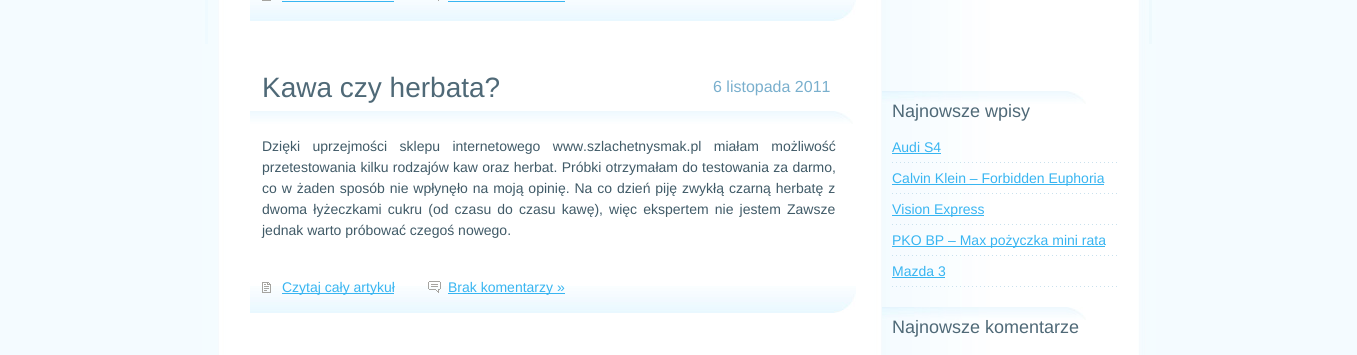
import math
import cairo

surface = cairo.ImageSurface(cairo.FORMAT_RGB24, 1357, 355)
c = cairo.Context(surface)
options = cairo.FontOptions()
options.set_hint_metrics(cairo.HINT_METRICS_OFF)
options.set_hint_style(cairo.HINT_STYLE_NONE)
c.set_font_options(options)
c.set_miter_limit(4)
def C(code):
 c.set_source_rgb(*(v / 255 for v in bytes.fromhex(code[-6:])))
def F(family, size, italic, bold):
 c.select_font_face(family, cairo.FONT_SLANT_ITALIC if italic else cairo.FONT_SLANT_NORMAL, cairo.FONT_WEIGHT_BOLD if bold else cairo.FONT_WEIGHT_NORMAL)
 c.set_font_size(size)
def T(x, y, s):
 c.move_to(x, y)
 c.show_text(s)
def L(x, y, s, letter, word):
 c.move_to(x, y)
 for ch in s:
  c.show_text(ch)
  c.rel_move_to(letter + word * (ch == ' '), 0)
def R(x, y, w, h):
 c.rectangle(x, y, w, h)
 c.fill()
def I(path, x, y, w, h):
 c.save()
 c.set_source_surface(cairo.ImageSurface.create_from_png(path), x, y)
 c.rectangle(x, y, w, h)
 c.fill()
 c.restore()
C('f4fbff')
c.paint()
I('1.png',202,0,954,355)
C('effaff')
R(205,0,3,44)
I('2.png',250,0,606,21)
C('a6a4a0')
R(262,0,9,1)
R(438,0,1,1)
C('38b5f1')
R(282,1,112,1)
R(448,1,117,1)
F('Liberation Sans',28,0,0)
C('4f6977')
T(262,97,'Kawa czy herbata?')
F('Liberation Sans',16,0,0)
C('79afcd')
T(713,92,'6 listopada 2011')
I('3.png',250,111,603,13)
F('Liberation Sans',14,0,0)
C('405a67')
L(262,151,'Dzięki uprzejmości sklepu internetowego www.szlachetnysmak.pl miałam możliwość',0,8.5)
L(262,172,'przetestowania kilku rodzajów kaw oraz herbat. Próbki otrzymałam do testowania za darmo,',0,.4)
L(262,193,'co w żaden sposób nie wpłynęło na moją opinię. Na co dzień piję zwykłą czarną herbatę z',0,1)
L(262,214,'dwoma łyżeczkami cukru (od czasu do czasu kawę), więc ekspertem nie jestem Zawsze',0,2.25)
T(262,235,'jednak warto próbować czegoś nowego.')
I('4.png',250,286,606,27)
I('5.png',262,282,9,11)
C('38b5f1')
R(282,293,112,1)
T(282,292,'Czytaj cały artykuł')
I('6.png',428,281,13,12)
R(448,293,117,1)
T(448,292,'Brak komentarzy »')
C('eef9fd')
R(1149,0,3,44)
I('7.png',882,91,204,13)
F('Liberation Sans',18,0,0)
C('4f6977')
T(892,117,'Najnowsze wpisy')
I('8.png',892,162,225,1)
F('Liberation Sans',14,0,0)
C('38b5f1')
T(892,152,'Audi S4')
R(892,153,49,1)
I('8.png',892,193,225,1)
R(892,184,212,1)
T(892,183,'Calvin Klein – Forbidden Euphoria')
I('8.png',892,224,225,1)
R(892,215,92,1)
T(892,214,'Vision Express')
I('8.png',892,255,225,1)
R(892,246,213,1)
T(892,245,'PKO BP – Max pożyczka mini rata')
I('8.png',892,286,225,1)
T(892,276,'Mazda 3')
R(892,277,53,1)
I('7.png',882,307,204,13)
F('Liberation Sans',18,0,0)
C('4f6977')
T(892,333,'Najnowsze komentarze')
surface.write_to_png('o.png')
